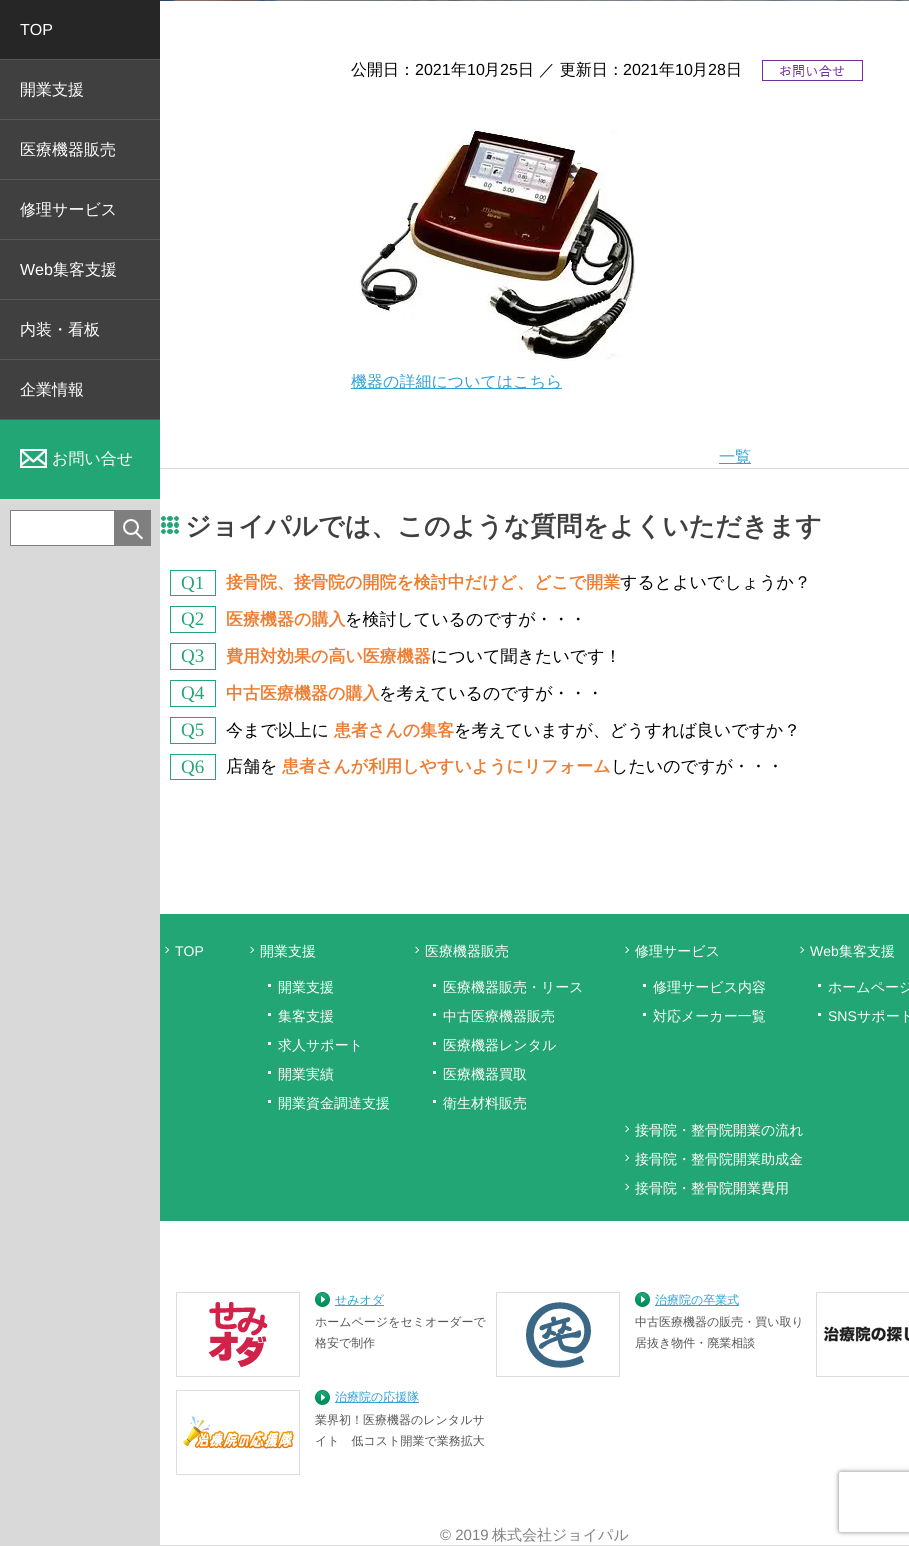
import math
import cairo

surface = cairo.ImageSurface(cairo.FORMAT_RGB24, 909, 1546)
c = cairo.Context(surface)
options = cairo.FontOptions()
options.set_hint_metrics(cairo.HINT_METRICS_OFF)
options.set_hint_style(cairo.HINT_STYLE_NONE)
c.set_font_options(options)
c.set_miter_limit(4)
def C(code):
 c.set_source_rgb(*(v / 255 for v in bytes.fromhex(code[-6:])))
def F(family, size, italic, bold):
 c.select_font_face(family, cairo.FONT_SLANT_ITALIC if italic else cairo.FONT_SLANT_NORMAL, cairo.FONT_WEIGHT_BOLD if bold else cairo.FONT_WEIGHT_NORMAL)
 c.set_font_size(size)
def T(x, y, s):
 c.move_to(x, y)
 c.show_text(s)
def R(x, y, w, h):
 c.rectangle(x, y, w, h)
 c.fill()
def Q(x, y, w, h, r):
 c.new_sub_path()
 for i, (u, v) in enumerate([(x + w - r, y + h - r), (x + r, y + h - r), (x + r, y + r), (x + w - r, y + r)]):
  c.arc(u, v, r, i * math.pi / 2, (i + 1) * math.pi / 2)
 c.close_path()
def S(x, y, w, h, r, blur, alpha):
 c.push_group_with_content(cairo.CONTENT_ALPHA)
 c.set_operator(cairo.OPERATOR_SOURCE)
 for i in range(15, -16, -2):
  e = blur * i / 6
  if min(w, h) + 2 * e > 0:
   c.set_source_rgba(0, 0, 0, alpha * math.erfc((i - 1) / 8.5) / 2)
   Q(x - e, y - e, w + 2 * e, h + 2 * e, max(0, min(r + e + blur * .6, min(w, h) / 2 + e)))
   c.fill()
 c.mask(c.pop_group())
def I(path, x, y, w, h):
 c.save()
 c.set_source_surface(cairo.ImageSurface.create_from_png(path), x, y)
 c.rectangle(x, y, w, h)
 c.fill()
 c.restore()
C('ffffff')
c.paint()
C('d9d9d9')
R(0,499,160,1047)
C('595959')
R(0,59,160,1)
C('262626')
R(0,0,160,59)
F('Liberation Sans',16,0,0)
C('ffffff')
T(20,35,'TOP')
C('595959')
R(0,119,160,1)
C('404040')
R(0,60,160,59)
F('WenQuanYi Zen Hei Medium',16,0,0)
C('ffffff')
T(20,95,'開業支援')
C('595959')
R(0,179,160,1)
C('404040')
R(0,120,160,59)
C('ffffff')
T(20,155,'医療機器販売')
C('595959')
R(0,239,160,1)
C('404040')
R(0,180,160,59)
C('ffffff')
T(20,215,'修理サービス')
C('595959')
R(0,299,160,1)
C('404040')
R(0,240,160,59)
F('Liberation Sans',16,0,0)
C('ffffff')
T(20,275,'Web')
F('WenQuanYi Zen Hei Medium',16,0,0)
T(53,275,'集客支援')
C('595959')
R(0,359,160,1)
C('404040')
R(0,300,160,59)
C('ffffff')
T(20,335,'内装・看板')
C('595959')
R(0,419,160,1)
C('404040')
R(0,360,160,59)
C('ffffff')
T(20,395,'企業情報')
C('23a675')
R(0,420,160,79)
I('1.png',20,449,27,19)
C('ffffff')
T(52,464,'お問い合せ')
c.rectangle(10.5,510.5,104,35)
c.fill_preserve()
C('7f7f7f')
c.set_line_width(1)
c.stroke()
I('2.png',115,510,36,36)
C('d9d9d9')
R(160,1545,749,1)
I('3.png',160,0,749,1)
C('000000')
T(351,75,'公開日：')
F('Liberation Sans',16,0,0)
T(415,75,'2021')
F('WenQuanYi Zen Hei Medium',16,0,0)
T(451,75,'年')
F('Liberation Sans',16,0,0)
T(467,75,'10')
F('WenQuanYi Zen Hei Medium',16,0,0)
T(484,75,'月')
F('Liberation Sans',16,0,0)
T(500,75,'25')
F('WenQuanYi Zen Hei Medium',16,0,0)
T(518,75,'日')
T(539,75,'／ 更新日：')
F('Liberation Sans',16,0,0)
T(623,75,'2021')
F('WenQuanYi Zen Hei Medium',16,0,0)
T(659,75,'年')
F('Liberation Sans',16,0,0)
T(675,75,'10')
F('WenQuanYi Zen Hei Medium',16,0,0)
T(692,75,'月')
F('Liberation Sans',16,0,0)
T(708,75,'28')
F('WenQuanYi Zen Hei Medium',16,0,0)
T(726,75,'日')
I('4.png',762,60,101,21)
I('5.png',359,129,277,232)
C('2fa1d5')
R(351,388,211,1)
T(351,387,'機器の詳細についてはこちら')
R(719,463,32,1)
T(719,462,'一覧')
C('d9d9d9')
R(160,468,749,1)
I('6.png',160,515,20,20)
F('WenQuanYi Zen Hei',26,0,1)
C('404040')
T(185,535,'ジョイパルでは、このような質問をよくいただきます')
c.rectangle(170.5,570.5,45,25)
C('23a675')
c.stroke()
F('Liberation Serif',19,0,0)
T(181,589,'Q1')
F('WenQuanYi Zen Hei',17,0,1)
C('ed7d31')
T(226,588,'接骨院、接骨院の開院を検討中だけど、どこで開業')
F('WenQuanYi Zen Hei Medium',17,0,0)
C('000000')
T(620,588,'するとよいでしょうか？')
c.rectangle(170.5,606.5,45,26)
C('23a675')
c.stroke()
F('Liberation Serif',19,0,0)
T(181,625,'Q2')
F('WenQuanYi Zen Hei',17,0,1)
C('ed7d31')
T(226,625,'医療機器の購入')
F('WenQuanYi Zen Hei Medium',17,0,0)
C('000000')
T(345,625,'を検討しているのですが・・・')
c.rectangle(170.5,643.5,45,26)
C('23a675')
c.stroke()
F('Liberation Serif',19,0,0)
T(181,662,'Q3')
F('WenQuanYi Zen Hei',17,0,1)
C('ed7d31')
T(226,662,'費用対効果の高い医療機器')
F('WenQuanYi Zen Hei Medium',17,0,0)
C('000000')
T(431,662,'について聞きたいです！')
c.rectangle(170.5,680.5,45,26)
C('23a675')
c.stroke()
F('Liberation Serif',19,0,0)
T(181,699,'Q4')
F('WenQuanYi Zen Hei',17,0,1)
C('ed7d31')
T(226,699,'中古医療機器の購入')
F('WenQuanYi Zen Hei Medium',17,0,0)
C('000000')
T(379,699,'を考えているのですが・・・')
c.rectangle(170.5,717.5,45,26)
C('23a675')
c.stroke()
F('Liberation Serif',19,0,0)
T(181,736,'Q5')
F('WenQuanYi Zen Hei Medium',17,0,0)
C('000000')
T(226,736,'今まで以上に')
F('WenQuanYi Zen Hei',17,0,1)
C('ed7d31')
T(334,736,'患者さんの集客')
F('WenQuanYi Zen Hei Medium',17,0,0)
C('000000')
T(454,736,'を考えていますが、どうすれば良いですか？')
c.rectangle(170.5,754.5,45,25)
C('23a675')
c.stroke()
F('Liberation Serif',19,0,0)
T(181,773,'Q6')
F('WenQuanYi Zen Hei Medium',17,0,0)
C('000000')
T(226,772,'店舗を')
F('WenQuanYi Zen Hei',17,0,1)
C('ed7d31')
T(282,772,'患者さんが利用しやすいようにリフォーム')
F('WenQuanYi Zen Hei Medium',17,0,0)
C('000000')
T(611,772,'したいのですが・・・')
C('23a675')
R(160,914,749,307)
I('7.png',165,946,4,7)
F('Liberation Sans',14,0,0)
C('ffffff')
T(175,956,'TOP')
I('7.png',250,946,4,7)
F('WenQuanYi Zen Hei Medium',14,0,0)
T(260,956,'開業支援')
R(268,984,3,3)
T(278,992,'開業支援')
R(268,1013,3,3)
T(278,1021,'集客支援')
R(268,1042,3,3)
T(278,1050,'求人サポート')
R(268,1071,3,3)
T(278,1079,'開業実績')
R(268,1100,3,3)
T(278,1108,'開業資金調達支援')
I('7.png',415,946,4,7)
T(425,956,'医療機器販売')
R(433,984,3,3)
T(443,992,'医療機器販売・リース')
R(433,1013,3,3)
T(443,1021,'中古医療機器販売')
R(433,1042,3,3)
T(443,1050,'医療機器レンタル')
R(433,1071,3,3)
T(443,1079,'医療機器買取')
R(433,1100,3,3)
T(443,1108,'衛生材料販売')
I('7.png',625,946,4,7)
T(635,956,'修理サービス')
R(643,984,3,3)
T(653,992,'修理サービス内容')
R(643,1013,3,3)
T(653,1021,'対応メーカー一覧')
I('7.png',800,946,4,7)
F('Liberation Sans',14,0,0)
T(810,956,'Web')
F('WenQuanYi Zen Hei Medium',14,0,0)
T(839,956,'集客支援')
R(818,984,3,3)
T(828,992,'ホームページ')
R(818,1013,3,3)
F('Liberation Sans',14,0,0)
T(828,1021,'SNS')
F('WenQuanYi Zen Hei Medium',14,0,0)
T(857,1021,'サポート')
I('7.png',625,1125,4,7)
T(635,1135,'接骨院・整骨院開業の流れ')
I('7.png',625,1154,4,7)
T(635,1164,'接骨院・整骨院開業助成金')
I('7.png',625,1183,4,7)
T(635,1193,'接骨院・整骨院開業費用')
c.rectangle(176.5,1292.5,123,84)
C('dddddd')
c.stroke()
I('8.png',315,1292,15,15)
C('2fa1d5')
R(335,1305,49,1)
F('WenQuanYi Zen Hei Medium',12,0,0)
T(335,1304,'せみオダ')
C('555555')
T(315,1326,'ホームページをセミオーダーで')
T(315,1347,'格安で制作')
I('9.png',208,1302,60,65)
c.rectangle(496.5,1292.5,123,84)
C('dddddd')
c.stroke()
I('8.png',635,1292,15,15)
C('2fa1d5')
R(655,1305,84,1)
T(655,1304,'治療院の卒業式')
C('555555')
T(635,1326,'中古医療機器の販売・買い取り')
T(635,1347,'居抜き物件・廃業相談')
I('10.png',526,1302,65,66)
c.rectangle(816.5,1292.5,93,84)
C('dddddd')
c.stroke()
I('11.png',823,1326,86,16)
c.rectangle(176.5,1390.5,123,84)
c.stroke()
I('8.png',315,1390,15,15)
C('2fa1d5')
R(335,1402,84,1)
T(335,1401,'治療院の応援隊')
C('555555')
T(315,1424,'業界初！医療機器のレンタルサ')
T(315,1445,'イト　低コスト開業で業務拡大')
I('12.png',183,1416,111,33)
F('Liberation Sans',15,0,0)
C('7f7f7f')
T(440,1540,'© 2019')
F('WenQuanYi Zen Hei Medium',15,0,0)
T(492,1540,'株式会社ジョイパル')
c.save()
c.set_fill_rule(cairo.FILL_RULE_EVEN_ODD)
c.new_path()
c.move_to(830,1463)
c.line_to(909,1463)
c.line_to(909,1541)
c.line_to(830,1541)
c.close_path()
c.move_to(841,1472)
c.line_to(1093,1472)
c.curve_to(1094,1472,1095,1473,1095,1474)
c.line_to(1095,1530)
c.curve_to(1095,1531,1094,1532,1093,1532)
c.line_to(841,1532)
c.curve_to(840,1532,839,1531,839,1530)
c.line_to(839,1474)
c.curve_to(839,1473,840,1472,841,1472)
c.close_path()
c.clip()
C('808080')
S(839,1472,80,60,2,2.5,1)
c.restore()
surface.write_to_png('o.png')
